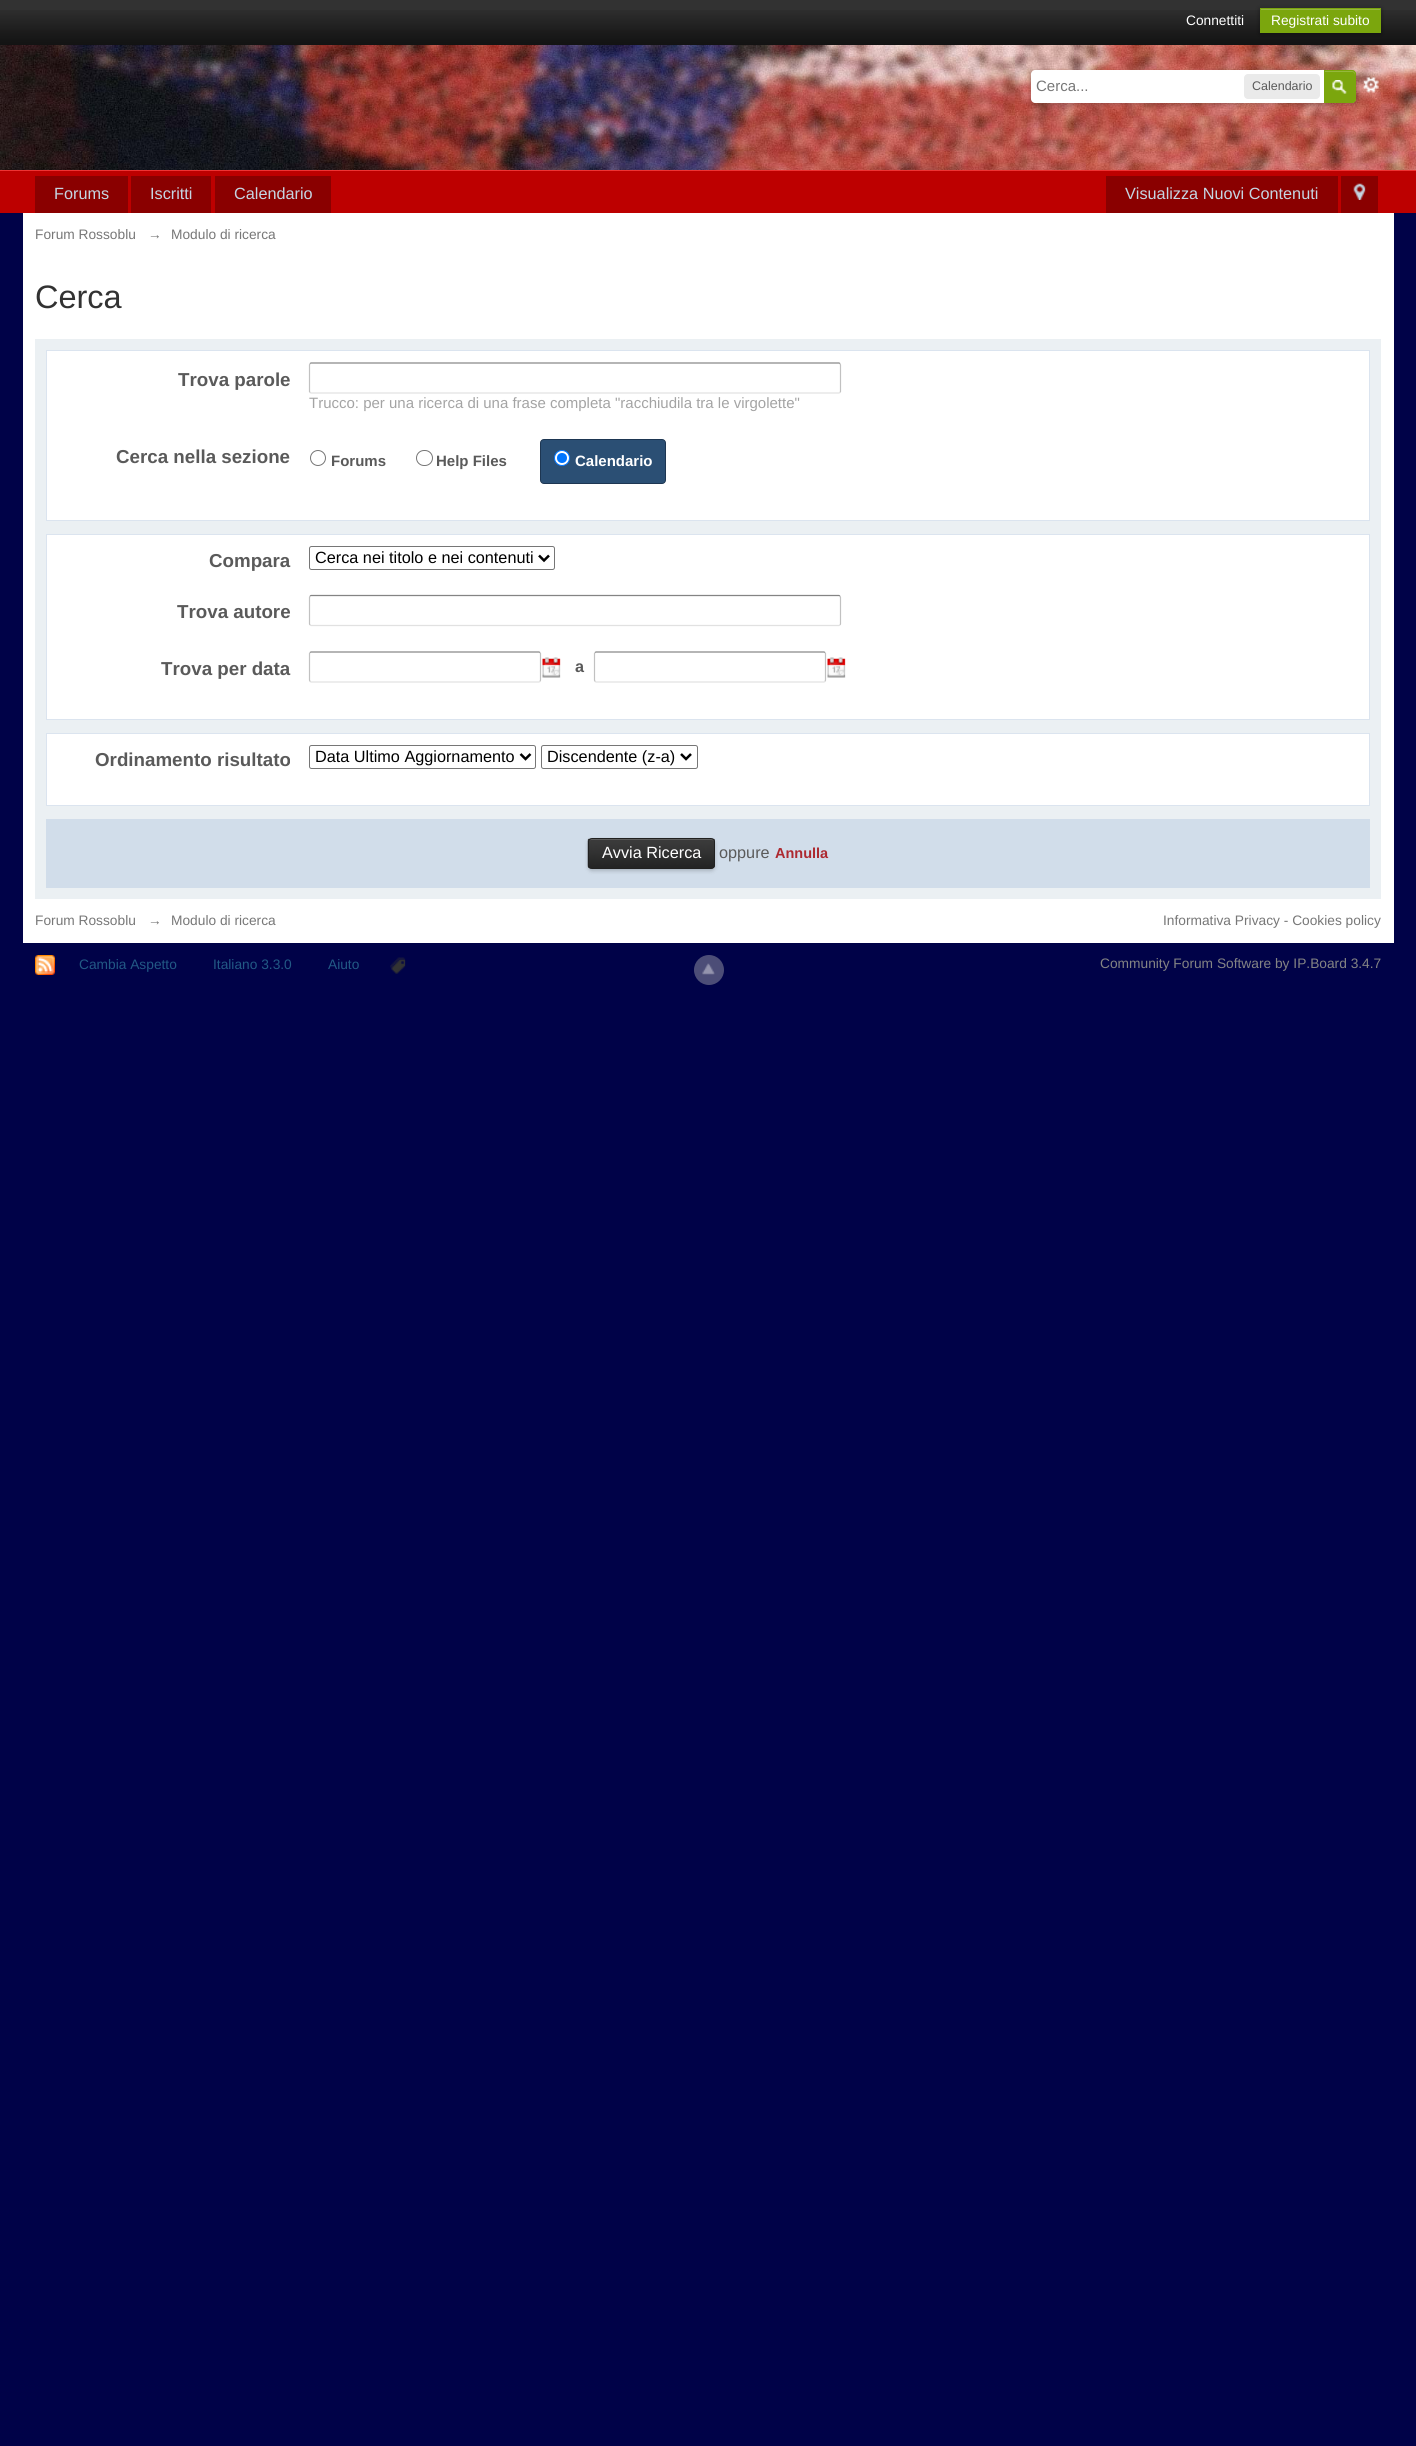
import math
import cairo

surface = cairo.ImageSurface(cairo.FORMAT_RGB24, 1416, 2446)
c = cairo.Context(surface)
options = cairo.FontOptions()
options.set_hint_metrics(cairo.HINT_METRICS_OFF)
options.set_hint_style(cairo.HINT_STYLE_NONE)
c.set_font_options(options)
c.set_miter_limit(4)
def C(code):
 c.set_source_rgb(*(v / 255 for v in bytes.fromhex(code[-6:])))
def F(family, size, italic, bold):
 c.select_font_face(family, cairo.FONT_SLANT_ITALIC if italic else cairo.FONT_SLANT_NORMAL, cairo.FONT_WEIGHT_BOLD if bold else cairo.FONT_WEIGHT_NORMAL)
 c.set_font_size(size)
def T(x, y, s):
 c.move_to(x, y)
 c.show_text(s)
def R(x, y, w, h):
 c.rectangle(x, y, w, h)
 c.fill()
def Q(x, y, w, h, r):
 c.new_sub_path()
 for i, (u, v) in enumerate([(x + w - r, y + h - r), (x + r, y + h - r), (x + r, y + r), (x + w - r, y + r)]):
  c.arc(u, v, r, i * math.pi / 2, (i + 1) * math.pi / 2)
 c.close_path()
def S(x, y, w, h, r, blur, alpha):
 c.push_group_with_content(cairo.CONTENT_ALPHA)
 c.set_operator(cairo.OPERATOR_SOURCE)
 for i in range(15, -16, -2):
  e = blur * i / 6
  if min(w, h) + 2 * e > 0:
   c.set_source_rgba(0, 0, 0, alpha * math.erfc((i - 1) / 8.5) / 2)
   Q(x - e, y - e, w + 2 * e, h + 2 * e, max(0, min(r + e + blur * .6, min(w, h) / 2 + e)))
   c.fill()
 c.mask(c.pop_group())
def I(path, x, y, w, h):
 c.save()
 c.set_source_surface(cairo.ImageSurface.create_from_png(path), x, y)
 c.rectangle(x, y, w, h)
 c.fill()
 c.restore()
C('000248')
c.paint()
C('323232')
R(0,0,1416,10)
I('1.png',0,10,1416,35)
F('Liberation Sans',13.75,0,0)
C('ffffff')
T(1186,25,'Connettiti')
C('000000')
S(1260,9,121,25,0,2.5,.4)
C('7ba60d')
R(1260,8,121,25)
C('95b83d')
R(1261,9,119,1)
C('ffffff')
T(1271,25,'Registrati subito')
I('2.png',0,45,1416,125)
C('ee3333')
R(0,170,1416,1)
I('4.png',1363,77,16,16)
C('000000')
S(1031,73,325,32,5,2.5,.2)
C('ffffff')
c.new_path()
c.move_to(1035,70)
c.line_to(1351,70)
c.curve_to(1354,70,1356,72,1356,75)
c.line_to(1356,98)
c.curve_to(1356,101,1354,103,1351,103)
c.line_to(1035,103)
c.curve_to(1033,103,1031,101,1031,99)
c.line_to(1031,74)
c.curve_to(1031,72,1033,70,1035,70)
c.close_path()
c.fill()
F('Liberation Sans',15,0,0)
C('777777')
T(1036,91,'Cerca...')
C('eaeaea')
Q(1244,74,76,25,4)
c.fill()
F('Liberation Sans',12.5,0,0)
C('5a5a5a')
T(1252,90,'Calendario')
C('7ba60d')
c.new_path()
c.move_to(1324,70)
c.line_to(1352,70)
c.curve_to(1354,70,1356,72,1356,74)
c.line_to(1356,99)
c.curve_to(1356,101,1354,103,1352,103)
c.line_to(1324,103)
c.close_path()
c.fill()
I('3.png',1332,80,15,14)
C('95b83d')
c.new_path()
c.move_to(1325,72)
c.line_to(1352,72)
c.curve_to(1354,72,1355,74,1355,75)
c.line_to(1355,73.5)
c.curve_to(1355,72,1354,71,1352.5,71)
c.line_to(1325,71)
c.close_path()
c.fill()
c.new_path()
c.move_to(1324.5,70.5)
c.line_to(1352,70.5)
c.curve_to(1354,70.5,1355.5,72,1355.5,74)
c.line_to(1355.5,99)
c.curve_to(1355.5,101,1354,102.5,1352,102.5)
c.line_to(1324.5,102.5)
c.close_path()
C('7ba60d')
c.set_line_width(1)
c.stroke()
C('bd0000')
R(0,171,1416,42)
C('8a0000')
R(35,176,93,37)
F('Liberation Sans',16.25,0,0)
C('c5d5e2')
T(54,199,'Forums')
C('8a0000')
R(131,176,80,37)
C('c5d5e2')
T(150,199,'Iscritti')
C('8a0000')
R(215,176,116,37)
C('c5d5e2')
T(234,199,'Calendario')
C('8a0000')
R(1106,176,232,37)
C('c5d5e2')
T(1125,199,'Visualizza Nuovi Contenuti')
C('8a0000')
R(1341,176,37,37)
I('5.png',1353,183,13,17)
C('ffffff')
R(23,213,1371,730)
F('Liberation Sans',13.75,0,0)
C('777777')
T(35,239,'Forum Rossoblu')
T(148,239,'→')
T(171,239,'Modulo di ricerca')
F('Liberation Sans',32.5,0,0)
C('323232')
T(35,308,'Cerca')
C('ebf0f3')
R(35,339,1346,560)
C('ffffff')
c.rectangle(46.5,350.5,1323,170)
c.fill_preserve()
C('dbe4ef')
c.stroke()
F('Liberation Sans',18.75,0,1)
C('5a5a5a')
T(178,386,'Trova parole')
c.new_path()
c.move_to(310,363.5)
c.line_to(311,363)
c.line_to(839,363)
c.line_to(840,363.5)
C('848484')
c.set_line_width(1.2)
c.stroke()
c.new_path()
c.move_to(840,363.5)
c.line_to(840.5,365)
c.line_to(840.5,391.5)
c.line_to(840,392.5)
C('c1c1c1')
c.stroke()
c.new_path()
c.move_to(840,392.5)
c.line_to(839,393)
c.line_to(311,393)
c.line_to(310,392.5)
C('e1e1e1')
c.stroke()
c.new_path()
c.move_to(310,392.5)
c.line_to(309.5,391.5)
c.line_to(309.5,365)
c.line_to(310,363.5)
C('c1c1c1')
c.stroke()
F('Liberation Sans',15,0,0)
C('a4a4a4')
T(309,408,'Trucco: per una ricerca di una frase completa "racchiudila tra le virgolette"')
F('Liberation Sans',18.75,0,1)
C('5a5a5a')
T(116,463,'Cerca nella sezione')
c.new_path()
c.arc(318,458,7.5,0,2 * math.pi)
C('767676')
c.set_line_width(1)
c.stroke()
F('Liberation Sans',15,0,1)
C('5a5a5a')
T(331,466,'Forums')
Q(416.5,450.5,16,15,7.5)
C('767676')
c.stroke()
C('5a5a5a')
T(436,466,'Help Files')
C('2b4f74')
Q(540.5,439.5,125,44,3.5)
c.fill_preserve()
C('1d3652')
c.stroke()
C('ffffff')
c.arc(562,458,7.5,0,2 * math.pi)
c.fill_preserve()
C('0075ff')
c.stroke()
c.arc(562,458,5,0,2 * math.pi)
c.fill()
C('ffffff')
T(575,466,'Calendario')
c.rectangle(46.5,534.5,1323,185)
c.fill_preserve()
C('dbe4ef')
c.stroke()
F('Liberation Sans',18.75,0,1)
C('5a5a5a')
T(209,567,'Compara')
Q(309.5,546.5,245,23,2)
C('767676')
c.stroke()
c.new_path()
c.move_to(539,555.5)
c.line_to(544,560.5)
c.line_to(549,555.5)
C('000000')
c.set_line_width(2.5)
c.stroke()
F('Liberation Sans',16.25,0,0)
T(315,563,'Cerca nei titolo e nei contenuti')
F('Liberation Sans',18.75,0,1)
C('5a5a5a')
T(177,618,'Trova autore')
c.new_path()
c.move_to(310,596)
c.line_to(311,595.5)
c.line_to(839,595.5)
c.line_to(840,596)
C('848484')
c.set_line_width(1.2)
c.stroke()
c.new_path()
c.move_to(840,596)
c.line_to(840.5,597.5)
c.line_to(840.5,624)
c.line_to(840,625)
C('c1c1c1')
c.stroke()
c.new_path()
c.move_to(840,625)
c.line_to(839,625.5)
c.line_to(311,625.5)
c.line_to(310,625)
C('e1e1e1')
c.stroke()
c.new_path()
c.move_to(310,625)
c.line_to(309.5,624)
c.line_to(309.5,597.5)
c.line_to(310,596)
C('c1c1c1')
c.stroke()
C('5a5a5a')
T(161,675,'Trova per data')
c.new_path()
c.move_to(310,652.5)
c.line_to(311,652)
c.line_to(539,652)
c.line_to(540,652.5)
C('848484')
c.stroke()
c.new_path()
c.move_to(540,652.5)
c.line_to(540.5,653.5)
c.line_to(540.5,680)
c.line_to(540,681.5)
C('c1c1c1')
c.stroke()
c.new_path()
c.move_to(540,681.5)
c.line_to(539,682)
c.line_to(311,682)
c.line_to(310,681.5)
C('e1e1e1')
c.stroke()
c.new_path()
c.move_to(310,681.5)
c.line_to(309.5,680)
c.line_to(309.5,653.5)
c.line_to(310,652.5)
C('c1c1c1')
c.stroke()
I('6.png',542,657,19,21)
F('Liberation Sans',16.25,0,1)
C('5a5a5a')
T(575,672,'a')
c.new_path()
c.move_to(595,652.5)
c.line_to(596,652)
c.line_to(824,652)
c.line_to(825,652.5)
C('848484')
c.stroke()
c.new_path()
c.move_to(825,652.5)
c.line_to(825.5,653.5)
c.line_to(825.5,680)
c.line_to(825,681.5)
C('c1c1c1')
c.stroke()
c.new_path()
c.move_to(825,681.5)
c.line_to(824,682)
c.line_to(596,682)
c.line_to(595,681.5)
C('e1e1e1')
c.stroke()
c.new_path()
c.move_to(595,681.5)
c.line_to(594.5,680)
c.line_to(594.5,653.5)
c.line_to(595,652.5)
C('c1c1c1')
c.stroke()
I('6.png',827,657,19,21)
C('ffffff')
c.rectangle(46.5,733.5,1323,72)
c.fill_preserve()
C('dbe4ef')
c.set_line_width(1)
c.stroke()
F('Liberation Sans',18.75,0,1)
C('5a5a5a')
T(95,766,'Ordinamento risultato')
Q(309.5,745.5,226,23,2)
C('767676')
c.stroke()
c.new_path()
c.move_to(520.5,754)
c.line_to(525.5,759)
c.line_to(530.5,754)
C('000000')
c.set_line_width(2.5)
c.stroke()
F('Liberation Sans',16.25,0,0)
T(315,762,'Data Ultimo Aggiornamento')
Q(541.5,745.5,156,23,2)
C('767676')
c.set_line_width(1)
c.stroke()
c.new_path()
c.move_to(681,754)
c.line_to(686,759)
c.line_to(691,754)
C('000000')
c.set_line_width(2.5)
c.stroke()
T(547,762,'Discendente (z-a)')
C('d1ddea')
R(46,819,1324,69)
C('000000')
S(588,840,127,31,4,2,.2)
I('7.png',587,838,128,31)
C('5c5c5c')
c.new_path()
c.move_to(591,840)
c.line_to(711,840)
c.curve_to(713,840,714,841,714,842)
c.curve_to(714,840,713,839,712,839)
c.line_to(591,839)
c.curve_to(589,840,589,841,589,842)
c.curve_to(589,841,590,840,591,840)
c.close_path()
c.fill()
Q(588.5,838.5,126,30,3.5)
C('212121')
c.set_line_width(1)
c.stroke()
C('ffffff')
T(602,858,'Avvia Ricerca')
C('5a5a5a')
T(719,858,'oppure')
F('Liberation Sans',14.5,0,1)
C('ad2930')
T(775,858,'Annulla')
F('Liberation Sans',13.75,0,0)
C('777777')
T(35,925,'Forum Rossoblu')
T(148,925,'→')
T(171,925,'Modulo di ricerca')
T(1163,925,'Informativa Privacy - Cookies policy')
I('8.png',35,955,20,20)
C('225985')
T(79,969,'Cambia Aspetto')
T(213,969,'Italiano 3.3.0')
T(328,969,'Aiuto')
I('9.png',390,957,16,17)
C('4c4d77')
c.arc(709,970,15,0,2 * math.pi)
c.fill()
I('10.png',702,963,13,12)
C('848484')
T(1100,968,'Community Forum Software by IP.Board 3.4.7')
surface.write_to_png('o.png')
